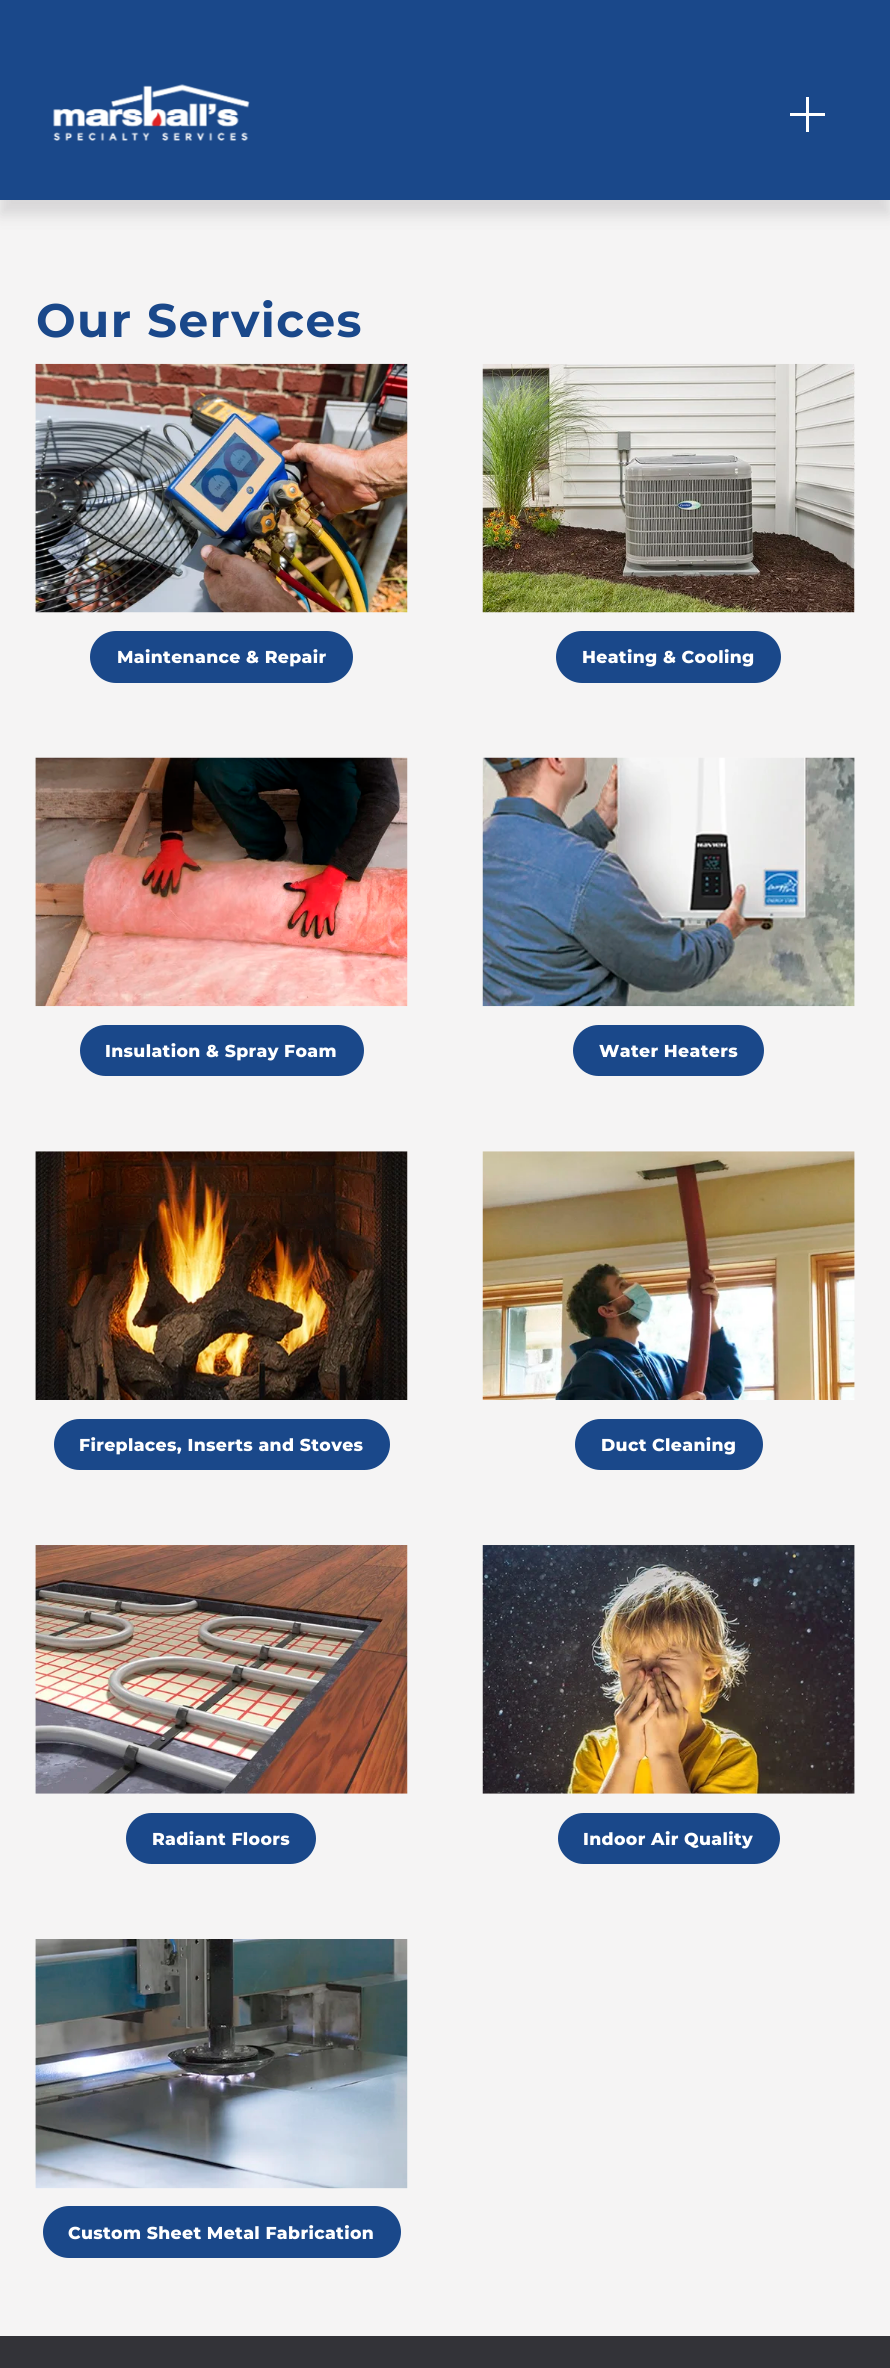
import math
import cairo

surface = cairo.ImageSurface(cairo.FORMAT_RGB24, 890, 2368)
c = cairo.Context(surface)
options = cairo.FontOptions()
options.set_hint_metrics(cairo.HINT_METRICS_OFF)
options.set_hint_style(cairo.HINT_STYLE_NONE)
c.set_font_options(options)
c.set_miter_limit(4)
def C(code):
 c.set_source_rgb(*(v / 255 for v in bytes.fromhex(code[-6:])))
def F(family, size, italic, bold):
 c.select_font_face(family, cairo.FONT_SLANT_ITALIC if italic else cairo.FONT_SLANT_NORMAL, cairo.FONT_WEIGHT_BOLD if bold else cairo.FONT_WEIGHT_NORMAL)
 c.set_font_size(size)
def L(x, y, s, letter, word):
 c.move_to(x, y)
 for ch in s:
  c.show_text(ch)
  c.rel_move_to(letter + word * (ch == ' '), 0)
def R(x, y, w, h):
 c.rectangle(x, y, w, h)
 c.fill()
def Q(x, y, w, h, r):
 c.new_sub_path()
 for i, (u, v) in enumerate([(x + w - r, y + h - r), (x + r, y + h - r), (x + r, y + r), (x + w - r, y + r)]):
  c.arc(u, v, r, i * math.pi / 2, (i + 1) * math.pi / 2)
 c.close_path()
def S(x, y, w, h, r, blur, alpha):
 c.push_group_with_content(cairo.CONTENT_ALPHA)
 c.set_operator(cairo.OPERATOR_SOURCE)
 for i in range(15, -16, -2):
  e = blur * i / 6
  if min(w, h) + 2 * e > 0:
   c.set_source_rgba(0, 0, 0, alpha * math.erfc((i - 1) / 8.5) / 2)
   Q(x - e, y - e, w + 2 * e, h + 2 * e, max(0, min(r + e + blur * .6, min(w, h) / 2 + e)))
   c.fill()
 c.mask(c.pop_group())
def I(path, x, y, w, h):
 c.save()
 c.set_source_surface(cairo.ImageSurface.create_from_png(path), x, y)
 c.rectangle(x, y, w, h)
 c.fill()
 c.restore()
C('f5f4f4')
c.paint()
C('1a488a')
R(0,0,890,200)
c.save()
c.rectangle(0,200,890,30)
c.clip()
C('d8d7d8')
S(0,15,890,200,0,7.5,1)
c.restore()
I('1.png',53,84,197,57)
C('ffffff')
R(790,113,35,3)
R(806,97,3,35)
F('Montserrat',47,0,1)
C('1a488a')
L(36,337,'Our Services',1.4,0)
I('2.png',35,363,373,250)
Q(90,631,263,52,26)
c.fill()
F('Montserrat ExtraBold',17.25,0,0)
C('ffffff')
L(117,663,'Maintenance & Repair',.35,0)
I('3.png',482,363,373,250)
C('1a488a')
Q(556,631,225,52,26)
c.fill()
C('ffffff')
L(582,663,'Heating & Cooling',.35,0)
I('4.png',35,757,373,250)
C('1a488a')
Q(80,1025,284,51,25.5)
c.fill()
C('ffffff')
L(105,1057,'Insulation & Spray Foam',.35,0)
I('5.png',482,757,373,250)
C('1a488a')
Q(573,1025,191,51,25.5)
c.fill()
C('ffffff')
L(599,1057,'Water Heaters',.35,0)
I('6.png',35,1151,373,249)
C('1a488a')
Q(54,1419,336,51,25.5)
c.fill()
C('ffffff')
L(79,1451,'Fireplaces, Inserts and Stoves',.35,0)
I('7.png',482,1151,373,249)
C('1a488a')
Q(575,1419,188,51,25.5)
c.fill()
C('ffffff')
L(601,1451,'Duct Cleaning',.35,0)
I('8.png',35,1545,373,249)
C('1a488a')
Q(126,1813,190,51,25.5)
c.fill()
C('ffffff')
L(152,1845,'Radiant Floors',.35,0)
I('9.png',482,1545,373,249)
C('1a488a')
Q(558,1813,222,51,25.5)
c.fill()
C('ffffff')
L(583,1845,'Indoor Air Quality',.35,0)
I('10.png',35,1939,373,250)
C('1a488a')
Q(43,2206,358,52,26)
c.fill()
C('ffffff')
L(68,2239,'Custom Sheet Metal Fabrication',.35,0)
C('333338')
R(0,2336,890,32)
surface.write_to_png('o.png')
